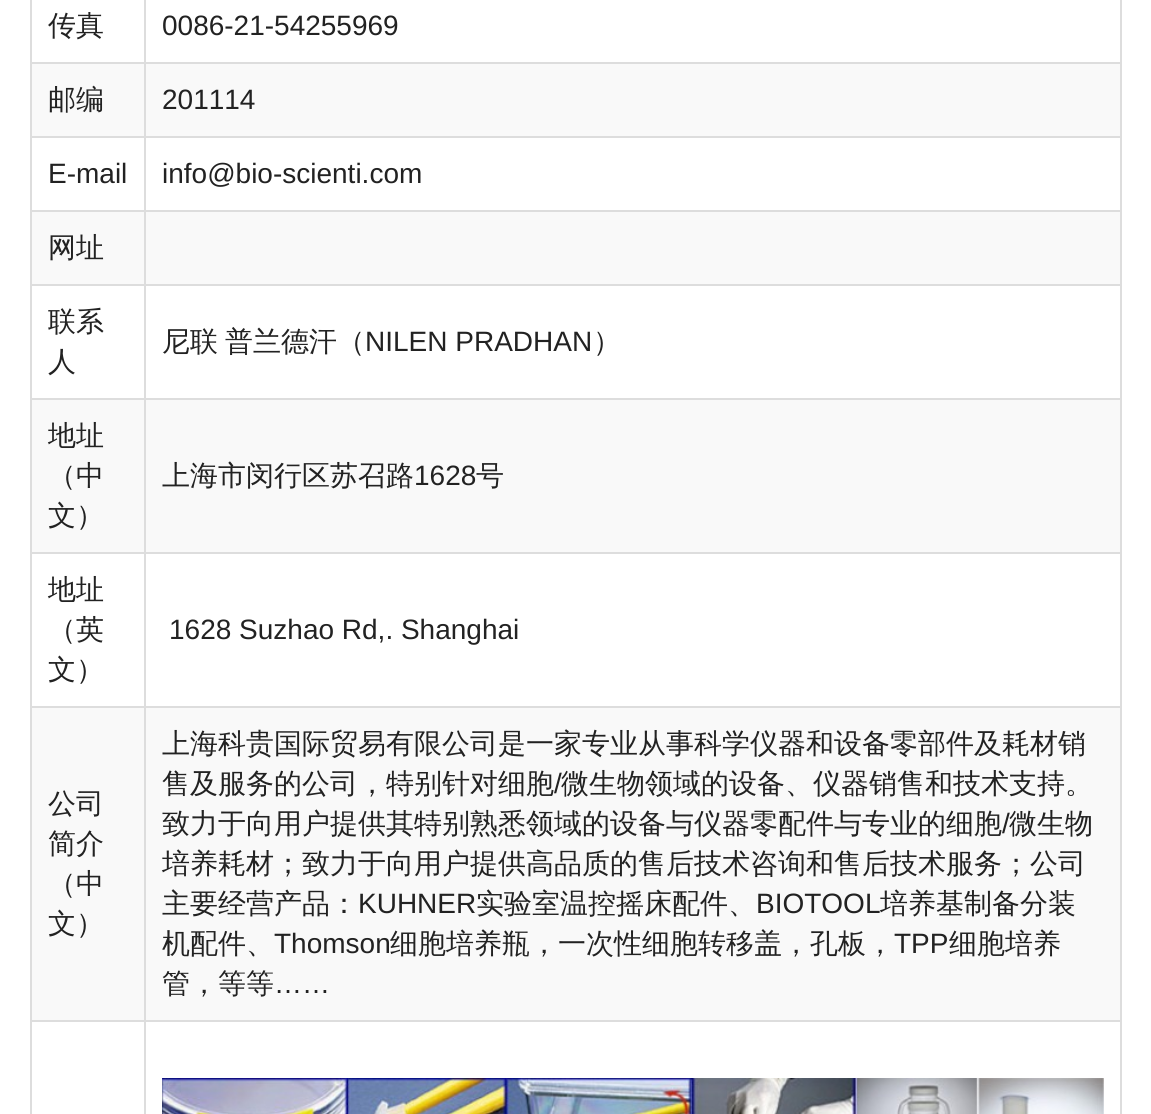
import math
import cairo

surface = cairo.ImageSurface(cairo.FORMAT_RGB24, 1151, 1114)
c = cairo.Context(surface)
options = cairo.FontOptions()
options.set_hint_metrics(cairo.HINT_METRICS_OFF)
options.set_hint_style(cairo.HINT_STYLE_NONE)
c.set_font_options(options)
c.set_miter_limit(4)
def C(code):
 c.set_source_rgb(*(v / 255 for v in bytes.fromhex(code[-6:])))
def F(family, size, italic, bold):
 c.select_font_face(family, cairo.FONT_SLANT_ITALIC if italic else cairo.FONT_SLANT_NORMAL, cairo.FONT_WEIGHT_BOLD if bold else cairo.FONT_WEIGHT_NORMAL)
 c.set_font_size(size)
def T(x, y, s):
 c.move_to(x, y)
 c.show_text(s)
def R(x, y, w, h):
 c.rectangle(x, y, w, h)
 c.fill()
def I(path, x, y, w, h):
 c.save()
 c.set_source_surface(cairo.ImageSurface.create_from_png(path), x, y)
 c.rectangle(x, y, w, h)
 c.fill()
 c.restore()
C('ffffff')
c.paint()
C('dddddd')
R(1120,0,2,1114)
R(30,0,2,1114)
F('WenQuanYi Zen Hei Medium',28,0,0)
C('222222')
T(48,35,'传真')
C('dddddd')
R(144,62,978,2)
C('f9f9f9')
R(32,64,1088,72)
C('dddddd')
R(144,136,978,2)
R(144,210,978,2)
C('f9f9f9')
R(32,212,1088,72)
C('dddddd')
R(144,284,978,2)
R(144,398,978,2)
C('f9f9f9')
R(32,400,1088,152)
C('dddddd')
R(144,552,978,2)
R(144,706,978,2)
C('f9f9f9')
R(32,708,1088,312)
C('dddddd')
R(144,1020,978,2)
R(144,1020,2,94)
R(30,1020,116,2)
R(144,706,2,316)
R(30,706,116,2)
R(144,552,2,156)
R(30,552,116,2)
R(144,398,2,156)
R(30,398,116,2)
R(144,284,2,116)
R(30,284,116,2)
R(144,210,2,76)
R(30,210,116,2)
R(144,136,2,76)
R(30,136,116,2)
R(144,62,2,76)
R(30,62,116,2)
R(144,0,2,64)
F('Liberation Sans',28,0,0)
C('222222')
T(162,35,'0086-21-54255969')
F('WenQuanYi Zen Hei Medium',28,0,0)
T(48,109,'邮编')
F('Liberation Sans',28,0,0)
T(162,109,'201114')
T(48,183,'E-mail')
T(162,183,'info@bio-scienti.com')
F('WenQuanYi Zen Hei Medium',28,0,0)
T(48,257,'网址')
T(48,331,'联系')
T(48,371,'人')
T(162,351,'尼联')
T(225,351,'普兰德汗（')
F('Liberation Sans',28,0,0)
T(365,351,'NILEN PRADHAN')
F('WenQuanYi Zen Hei Medium',28,0,0)
T(593,351,'）')
T(48,445,'地址')
T(48,485,'（中')
T(48,525,'文）')
T(162,485,'上海市闵行区苏召路')
F('Liberation Sans',28,0,0)
T(414,485,'1628')
F('WenQuanYi Zen Hei Medium',28,0,0)
T(476,485,'号')
T(48,599,'地址')
T(48,639,'（英')
T(48,679,'文）')
F('Liberation Sans',28,0,0)
T(169,639,'1628 Suzhao Rd,. Shanghai')
F('WenQuanYi Zen Hei Medium',28,0,0)
T(48,813,'公司')
T(48,853,'简介')
T(48,893,'（中')
T(48,933,'文）')
T(162,753,'上海科贵国际贸易有限公司是一家专业从事科学仪器和设备零部件及耗材销')
T(162,793,'售及服务的公司，特别针对细胞')
F('Liberation Sans',28,0,0)
T(554,793,'/')
F('WenQuanYi Zen Hei Medium',28,0,0)
T(561,793,'微生物领域的设备、仪器销售和技术支持。')
T(162,833,'致力于向用户提供其特别熟悉领域的设备与仪器零配件与专业的细胞')
F('Liberation Sans',28,0,0)
T(1002,833,'/')
F('WenQuanYi Zen Hei Medium',28,0,0)
T(1009,833,'微生物')
T(162,873,'培养耗材；致力于向用户提供高品质的售后技术咨询和售后技术服务；公司')
T(162,913,'主要经营产品：')
F('Liberation Sans',28,0,0)
T(358,913,'KUHNER')
F('WenQuanYi Zen Hei Medium',28,0,0)
T(476,913,'实验室温控摇床配件、')
F('Liberation Sans',28,0,0)
T(756,913,'BIOTOOL')
F('WenQuanYi Zen Hei Medium',28,0,0)
T(880,913,'培养基制备分装')
T(162,953,'机配件、')
F('Liberation Sans',28,0,0)
T(274,953,'Thomson')
F('WenQuanYi Zen Hei Medium',28,0,0)
T(390,953,'细胞培养瓶，一次性细胞转移盖，孔板，')
F('Liberation Sans',28,0,0)
T(894,953,'TPP')
F('WenQuanYi Zen Hei Medium',28,0,0)
T(949,953,'细胞培养')
T(162,993,'管，等等')
F('Liberation Sans',28,0,0)
T(274,993,'……')
I('1.png',162,1078,942,36)
surface.write_to_png('o.png')
